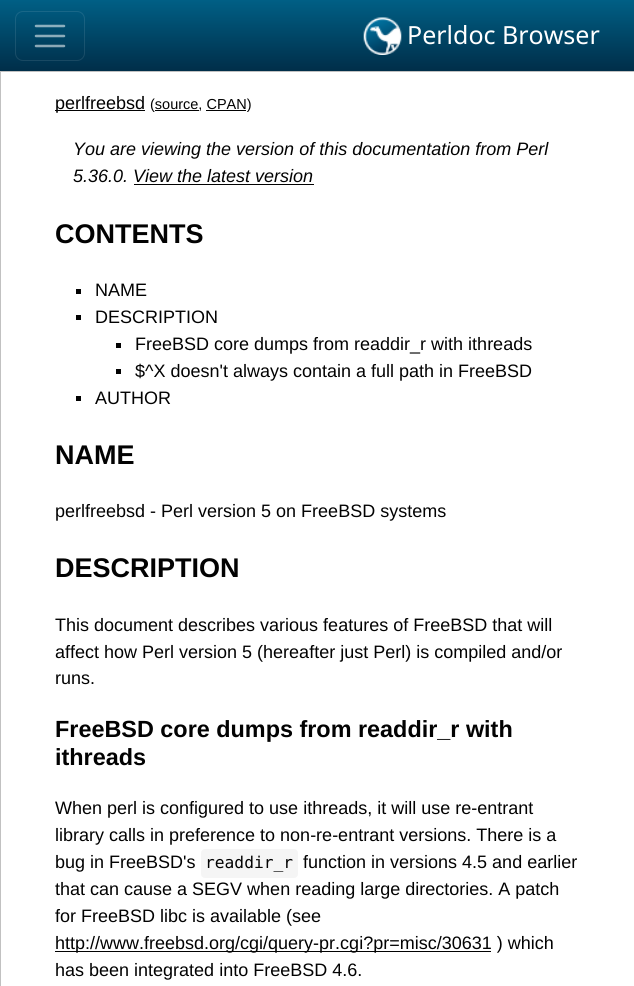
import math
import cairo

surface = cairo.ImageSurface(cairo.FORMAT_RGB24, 634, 986)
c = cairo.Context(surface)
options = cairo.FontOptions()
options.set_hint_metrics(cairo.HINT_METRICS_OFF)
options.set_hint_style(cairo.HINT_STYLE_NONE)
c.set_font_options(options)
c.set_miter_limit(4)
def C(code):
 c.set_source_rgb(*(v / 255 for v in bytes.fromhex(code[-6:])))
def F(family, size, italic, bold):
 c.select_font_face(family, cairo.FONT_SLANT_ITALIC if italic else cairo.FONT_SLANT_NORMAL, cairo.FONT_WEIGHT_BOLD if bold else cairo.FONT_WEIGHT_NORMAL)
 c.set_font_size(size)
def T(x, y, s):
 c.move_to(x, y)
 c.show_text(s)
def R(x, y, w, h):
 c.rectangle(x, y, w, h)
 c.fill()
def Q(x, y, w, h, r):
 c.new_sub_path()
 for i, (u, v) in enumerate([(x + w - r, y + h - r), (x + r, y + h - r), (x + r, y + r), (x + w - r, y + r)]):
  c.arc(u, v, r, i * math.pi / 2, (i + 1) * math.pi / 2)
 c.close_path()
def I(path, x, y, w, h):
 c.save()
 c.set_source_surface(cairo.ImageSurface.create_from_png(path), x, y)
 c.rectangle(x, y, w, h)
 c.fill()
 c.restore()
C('ffffff')
c.paint()
gradient = cairo.LinearGradient(318,0,318,71)
gradient.add_color_stop_rgba(0,0,0.373,0.522,1)
gradient.add_color_stop_rgba(1,0,0.18,0.286,1)
c.set_source(gradient)
R(0,0,634,71)
Q(15.5,11.5,69,49,7.5)
c.set_source_rgba(1,1,1,0.1)
c.set_line_width(1)
c.stroke()
c.new_path()
c.move_to(36,26)
c.line_to(64,26)
c.move_to(36,36)
c.line_to(64,36)
c.move_to(36,46)
c.line_to(64,46)
c.set_source_rgba(1,1,1,0.55)
c.set_line_width(2.5)
c.set_line_cap(cairo.LINE_CAP_ROUND)
c.stroke()
I('1.png',363,17,39,38)
F('Noto Sans',25,0,0)
C('ffffff')
T(407,44,'Perldoc Browser')
c.rectangle(.5,71.5,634,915)
C('c1c1c1')
c.set_line_width(1)
c.set_line_cap(cairo.LINE_CAP_BUTT)
c.stroke()
C('020202')
R(55,110,90,1)
F('Liberation Sans',18,0,0)
T(55,109,'perlfreebsd')
F('Liberation Sans',14.5,0,0)
T(150,109,'(source, CPAN)')
R(155,110,44,1)
R(206,110,40,1)
F('Liberation Sans',18,1,0)
T(73,155,'You are viewing the version of this documentation from Perl')
T(73,182,'5.36.0. View the latest version')
R(134,184,180,1)
F('Liberation Sans',27,0,1)
T(55,243,'CONTENTS')
R(76,289,5,5)
F('Liberation Sans',18,0,0)
T(95,296,'NAME')
R(76,315,5,5)
T(95,323,'DESCRIPTION')
R(116,343,5,5)
T(135,350,'FreeBSD core dumps from readdir_r with ithreads')
R(116,369,5,5)
T(135,377,'$^X doesn\'t always contain a full path in FreeBSD')
R(76,396,5,5)
T(95,404,'AUTHOR')
F('Liberation Sans',27,0,1)
T(55,464,'NAME')
F('Liberation Sans',18,0,0)
T(55,517,'perlfreebsd - Perl version 5 on FreeBSD systems')
F('Liberation Sans',27,0,1)
T(55,577,'DESCRIPTION')
F('Liberation Sans',18,0,0)
T(55,631,'This document describes various features of FreeBSD that will')
T(55,658,'affect how Perl version 5 (hereafter just Perl) is compiled and/or')
T(55,684,'runs.')
F('Liberation Sans',23.4,0,1)
T(55,737,'FreeBSD core dumps from readdir_r with')
T(55,765,'ithreads')
F('Liberation Sans',18,0,0)
T(55,814,'When perl is configured to use ithreads, it will use re-entrant')
T(55,841,'library calls in preference to non-re-entrant versions. There is a')
T(55,868,'bug in FreeBSD\'s')
C('f5f5f5')
Q(201,849,97,29,4)
c.fill()
F('DejaVu Sans Mono',16.25,0,0)
C('020202')
T(205,868,'readdir_r')
F('Liberation Sans',18,0,0)
T(303,868,'function in versions 4.5 and earlier')
T(55,895,'that can cause a SEGV when reading large directories. A patch')
T(55,922,'for FreeBSD libc is available (see')
R(55,951,436,1)
T(55,949,'http://www.freebsd.org/cgi/query-pr.cgi?pr=misc/30631 ) which')
T(55,976,'has been integrated into FreeBSD 4.6.')
surface.write_to_png('o.png')
